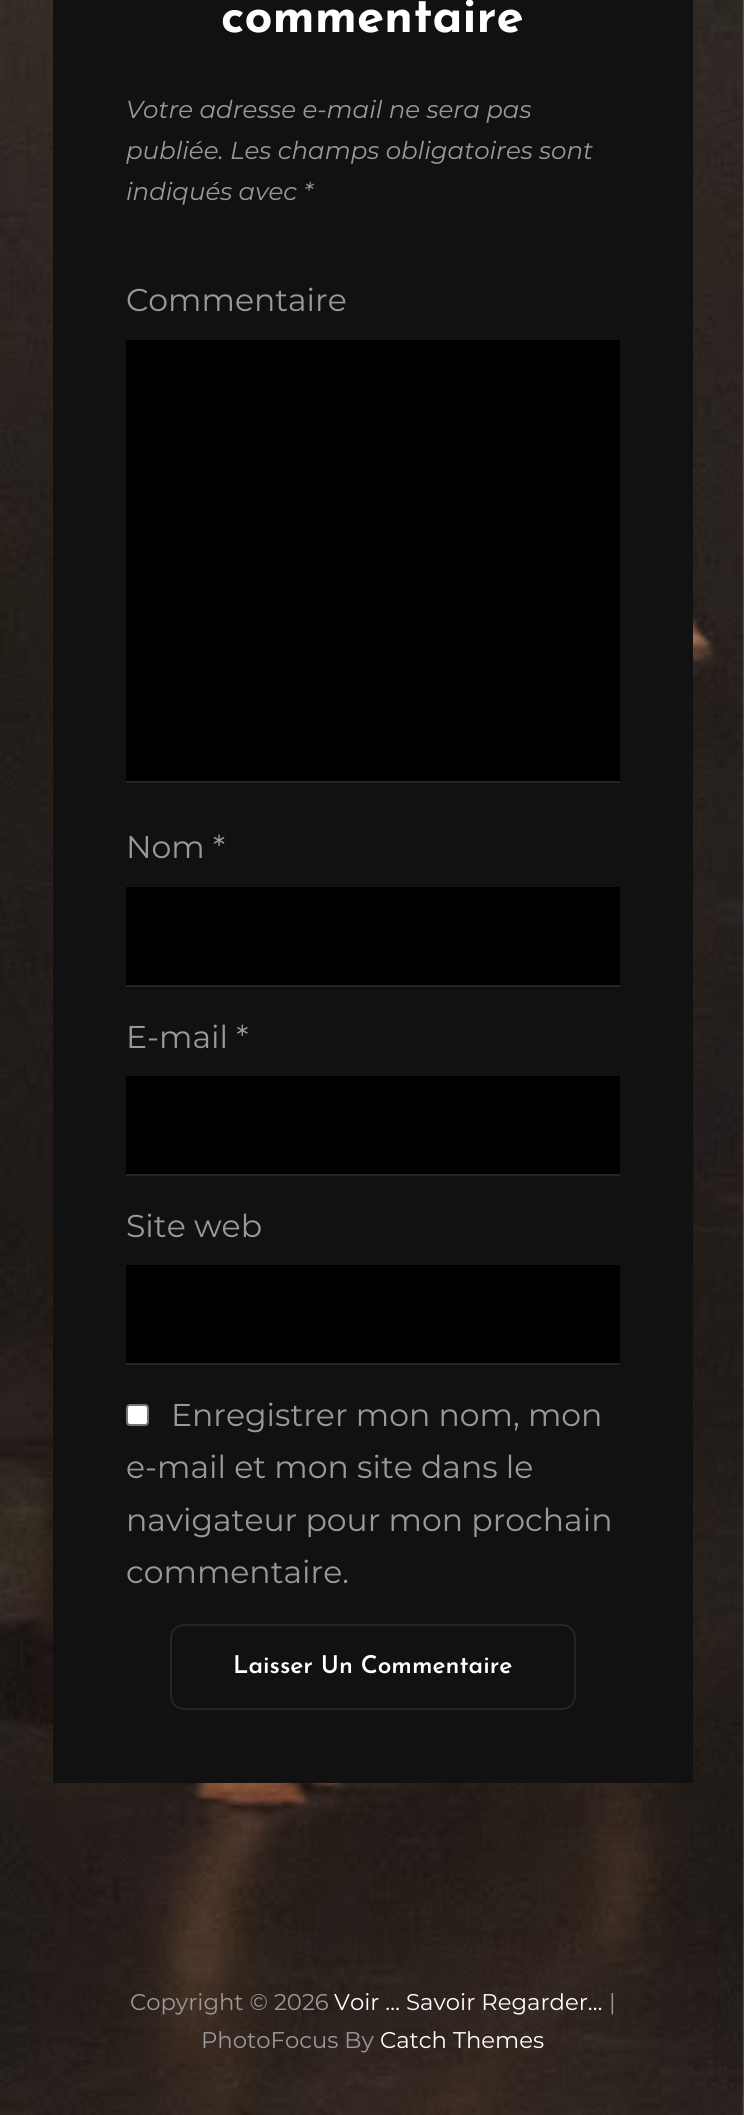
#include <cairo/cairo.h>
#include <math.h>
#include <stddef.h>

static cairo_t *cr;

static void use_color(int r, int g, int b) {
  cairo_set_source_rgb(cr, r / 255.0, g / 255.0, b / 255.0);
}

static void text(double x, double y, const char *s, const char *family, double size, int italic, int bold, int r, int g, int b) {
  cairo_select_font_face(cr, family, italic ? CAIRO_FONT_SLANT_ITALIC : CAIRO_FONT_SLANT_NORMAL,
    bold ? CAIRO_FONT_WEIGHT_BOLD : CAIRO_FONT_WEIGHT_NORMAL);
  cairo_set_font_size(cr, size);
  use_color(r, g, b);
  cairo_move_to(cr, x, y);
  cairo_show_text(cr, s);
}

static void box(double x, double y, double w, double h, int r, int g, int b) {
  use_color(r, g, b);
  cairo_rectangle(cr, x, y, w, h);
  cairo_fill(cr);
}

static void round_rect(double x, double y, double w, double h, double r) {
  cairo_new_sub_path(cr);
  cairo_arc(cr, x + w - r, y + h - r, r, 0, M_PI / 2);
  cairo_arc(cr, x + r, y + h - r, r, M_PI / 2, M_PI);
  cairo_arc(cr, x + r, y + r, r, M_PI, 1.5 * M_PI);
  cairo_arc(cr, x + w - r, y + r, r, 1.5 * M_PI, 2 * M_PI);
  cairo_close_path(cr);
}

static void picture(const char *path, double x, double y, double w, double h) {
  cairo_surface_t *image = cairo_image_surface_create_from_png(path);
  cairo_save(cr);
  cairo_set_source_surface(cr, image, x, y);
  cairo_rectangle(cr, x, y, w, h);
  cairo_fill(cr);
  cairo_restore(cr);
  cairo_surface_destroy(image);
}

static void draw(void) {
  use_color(255, 255, 255);
  cairo_paint(cr);
  picture("img_01.png", 0, 0, 744, 2115);
  box(53, 0, 640, 1783, 17, 17, 17);
  box(126, 340, 494, 441, 0, 0, 0);
  box(126, 781, 494, 2, 37, 37, 37);
  box(126, 887, 494, 98, 0, 0, 0);
  box(126, 985, 494, 2, 37, 37, 37);
  box(126, 1076, 494, 98, 0, 0, 0);
  box(126, 1174, 494, 2, 37, 37, 37);
  box(126, 1265, 494, 98, 0, 0, 0);
  box(126, 1363, 494, 2, 37, 37, 37);
  use_color(255, 255, 255);
  round_rect(127, 1405, 21, 20, 3);
  cairo_fill_preserve(cr);
  use_color(118, 118, 118);
  cairo_stroke(cr);
  round_rect(171, 1625, 404, 84, 13);
  use_color(37, 37, 37);
  cairo_stroke(cr);
  text(221, 32, "commentaire", "Josefin Sans", 49, 0, 1, 255, 255, 255);
  text(126, 118, "Votre adresse e-mail ne sera pas", "Montserrat", 24.5, 1, 0, 153, 153, 153);
  text(126, 159, "publiée. Les champs obligatoires sont", "Montserrat", 24.5, 1, 0, 153, 153, 153);
  text(126, 200, "indiqués avec *", "Montserrat", 24.5, 1, 0, 153, 153, 153);
  text(126, 311, "Commentaire", "Montserrat", 31.5, 0, 0, 153, 153, 153);
  text(126, 858, "Nom *", "Montserrat", 31.5, 0, 0, 153, 153, 153);
  text(126, 1048, "E-mail *", "Montserrat", 31.5, 0, 0, 153, 153, 153);
  text(126, 1237, "Site web", "Montserrat", 31.5, 0, 0, 153, 153, 153);
  text(171, 1426, "Enregistrer mon nom, mon", "Montserrat", 31.5, 0, 0, 153, 153, 153);
  text(126, 1478, "e-mail et mon site dans le", "Montserrat", 31.5, 0, 0, 153, 153, 153);
  text(126, 1531, "navigateur pour mon prochain", "Montserrat", 31.5, 0, 0, 153, 153, 153);
  text(126, 1583, "commentaire.", "Montserrat", 31.5, 0, 0, 153, 153, 153);
  text(233, 1673, "Laisser Un Commentaire", "Josefin Sans SemiBold", 24.5, 0, 0, 255, 255, 255);
  text(130, 2010, "Copyright © 2026", "Montserrat", 22.75, 0, 0, 153, 153, 153);
  text(334, 2010, "Voir … Savoir Regarder…", "Montserrat", 22.75, 0, 0, 255, 255, 255);
  text(609, 2010, "|", "Montserrat", 22.75, 0, 0, 153, 153, 153);
  text(201, 2048, "PhotoFocus By", "Montserrat", 22.75, 0, 0, 153, 153, 153);
  text(380, 2048, "Catch Themes", "Montserrat", 22.75, 0, 0, 255, 255, 255);
}

int main(void) {
  cairo_surface_t *surface = cairo_image_surface_create(CAIRO_FORMAT_RGB24, 744, 2115);
  cr = cairo_create(surface);
  cairo_font_options_t *options = cairo_font_options_create();
  cairo_font_options_set_hint_metrics(options, CAIRO_HINT_METRICS_OFF);
  cairo_font_options_set_hint_style(options, CAIRO_HINT_STYLE_NONE);
  cairo_set_font_options(cr, options);
  cairo_set_miter_limit(cr, 4);
  draw();
  cairo_surface_write_to_png(surface, "out.png");
  cairo_font_options_destroy(options);
  cairo_destroy(cr);
  cairo_surface_destroy(surface);
  return 0;
}
